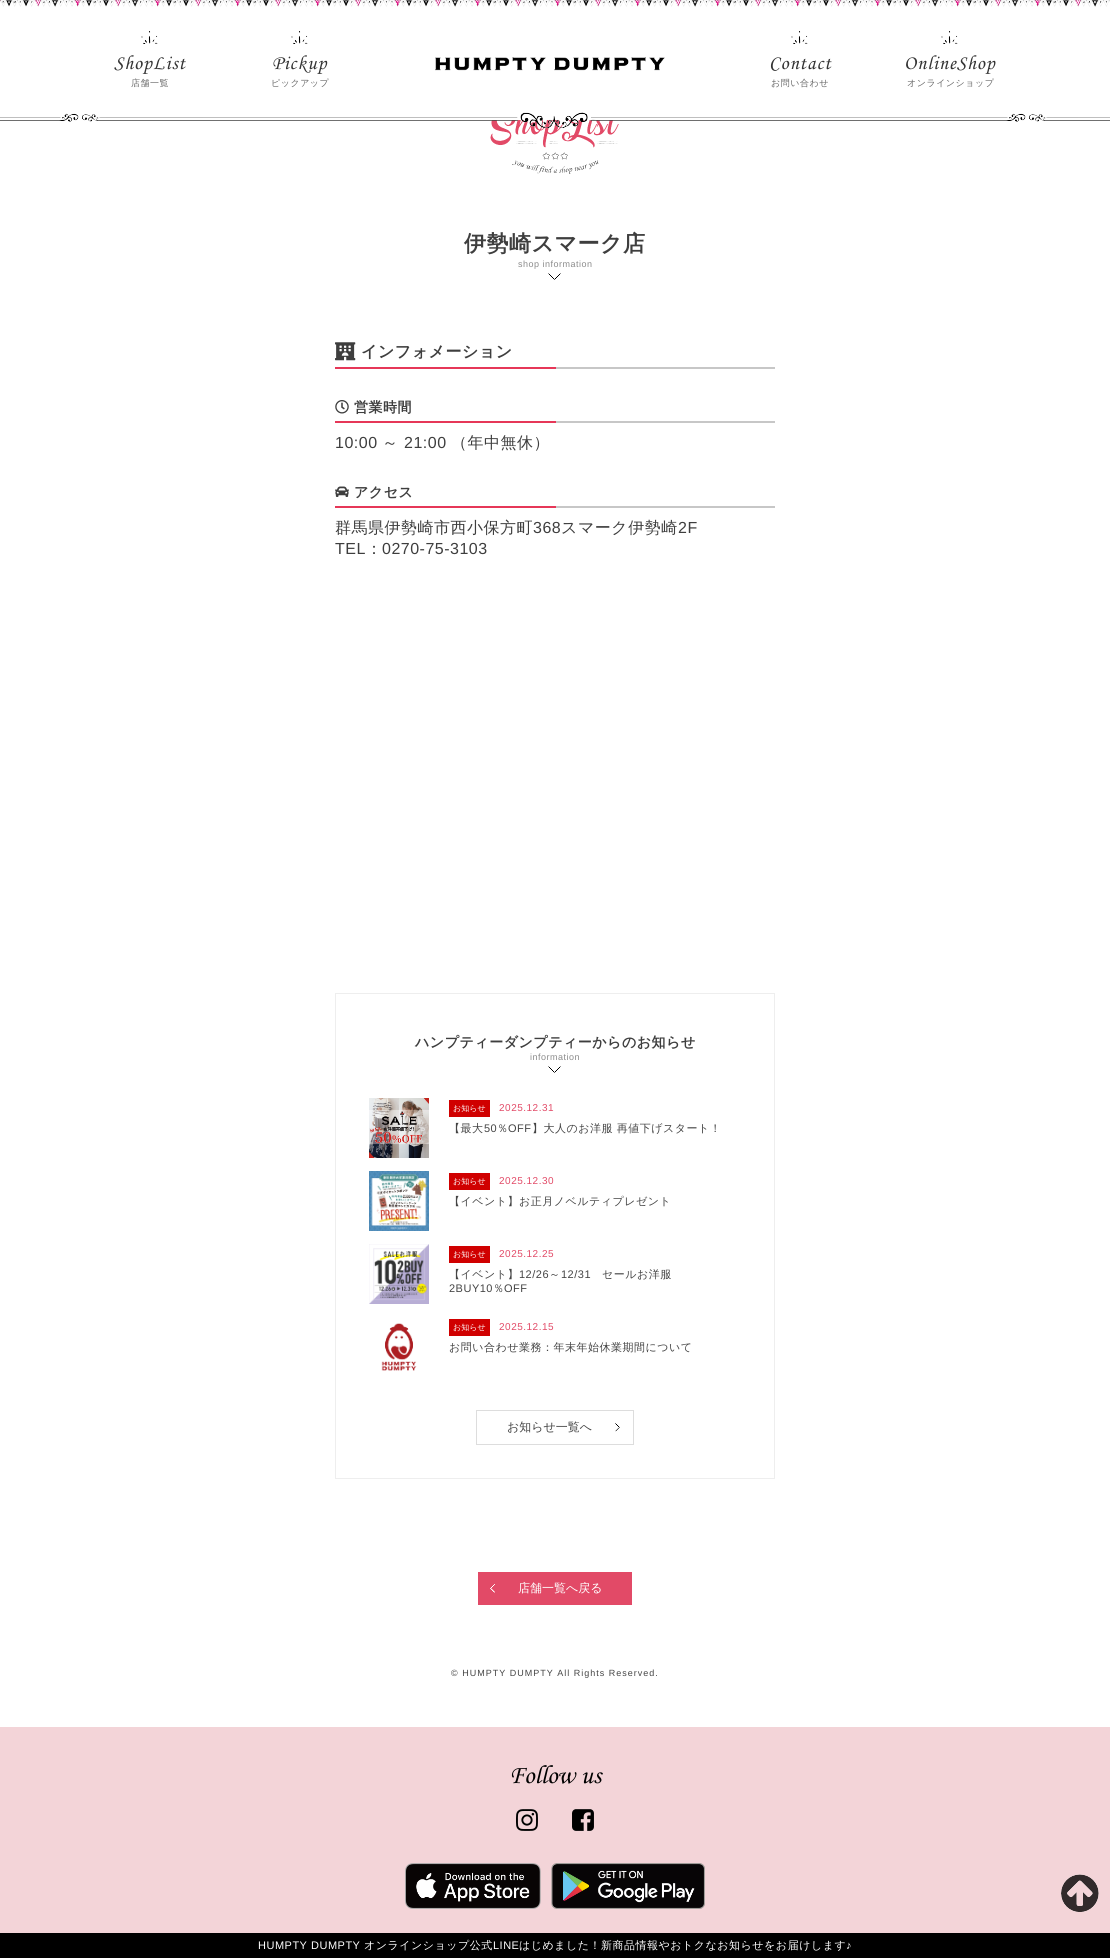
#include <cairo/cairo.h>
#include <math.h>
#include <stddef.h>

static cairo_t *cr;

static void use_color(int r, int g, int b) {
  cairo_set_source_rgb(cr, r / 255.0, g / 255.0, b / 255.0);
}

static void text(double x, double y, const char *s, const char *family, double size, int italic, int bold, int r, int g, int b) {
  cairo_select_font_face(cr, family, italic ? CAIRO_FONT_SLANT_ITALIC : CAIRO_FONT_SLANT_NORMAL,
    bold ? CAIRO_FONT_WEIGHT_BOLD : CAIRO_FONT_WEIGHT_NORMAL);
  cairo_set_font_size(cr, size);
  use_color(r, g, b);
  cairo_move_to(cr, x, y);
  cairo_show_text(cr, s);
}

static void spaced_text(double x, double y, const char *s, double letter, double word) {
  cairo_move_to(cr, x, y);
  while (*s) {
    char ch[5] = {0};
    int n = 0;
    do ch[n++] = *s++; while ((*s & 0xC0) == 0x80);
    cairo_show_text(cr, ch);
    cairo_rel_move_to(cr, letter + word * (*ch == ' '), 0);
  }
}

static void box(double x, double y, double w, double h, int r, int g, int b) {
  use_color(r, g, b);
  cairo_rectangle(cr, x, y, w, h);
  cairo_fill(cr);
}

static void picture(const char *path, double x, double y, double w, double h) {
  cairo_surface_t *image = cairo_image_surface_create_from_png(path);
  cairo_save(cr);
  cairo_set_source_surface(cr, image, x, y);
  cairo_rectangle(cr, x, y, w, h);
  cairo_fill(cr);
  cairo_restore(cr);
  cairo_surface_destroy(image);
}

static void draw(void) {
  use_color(255, 255, 255);
  cairo_paint(cr);
  picture("img_01.png", 0, 0, 1110, 7);
  picture("img_02.png", 141, 31, 17, 13);
  picture("img_02.png", 291, 31, 17, 13);
  picture("img_03.png", 435, 57, 230, 14);
  picture("img_02.png", 791, 31, 17, 13);
  picture("img_02.png", 941, 31, 17, 13);
  picture("img_05.png", 490, 120, 129, 54);
  picture("img_04.png", 0, 112, 1110, 16);
  picture("img_06.png", 548, 273, 13, 7);
  picture("img_07.png", 335, 367, 440, 2);
  picture("img_08.png", 335, 342, 21, 19);
  picture("img_07.png", 335, 421, 440, 2);
  picture("img_09.png", 335, 400, 14, 14);
  picture("img_07.png", 335, 506, 440, 2);
  picture("img_10.png", 335, 486, 14, 11);
  cairo_rectangle(cr, 335.5, 993.5, 439, 485);
  use_color(238, 238, 238);
  cairo_set_line_width(cr, 1);
  cairo_stroke(cr);
  picture("img_06.png", 548, 1066, 13, 7);
  picture("img_11.png", 369, 1098, 60, 60);
  box(449, 1100, 41, 17, 208, 0, 0);
  picture("img_12.png", 369, 1171, 60, 60);
  box(449, 1173, 41, 17, 208, 0, 0);
  picture("img_13.png", 369, 1244, 60, 60);
  box(449, 1246, 41, 17, 208, 0, 0);
  picture("img_14.png", 381, 1323, 36, 48);
  box(449, 1319, 41, 17, 208, 0, 0);
  picture("img_15.png", 615, 1423, 5, 9);
  cairo_rectangle(cr, 476.5, 1410.5, 157, 34);
  use_color(221, 221, 221);
  cairo_stroke(cr);
  box(478, 1572, 154, 33, 226, 74, 103);
  picture("img_16.png", 490, 1584, 5, 9);
  box(0, 1727, 1110, 206, 243, 212, 216);
  picture("img_17.png", 516, 1809, 22, 22);
  picture("img_18.png", 572, 1809, 22, 22);
  picture("img_19.png", 405, 1863, 136, 46);
  picture("img_20.png", 551, 1863, 154, 46);
  box(0, 1933, 1110, 25, 0, 0, 0);
  picture("img_21.png", 1061, 1874, 38, 38);
  cairo_select_font_face(cr, "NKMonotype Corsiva", CAIRO_FONT_SLANT_ITALIC, CAIRO_FONT_WEIGHT_NORMAL);
  cairo_set_font_size(cr, 20);
  use_color(51, 51, 51);
  spaced_text(114, 69, "ShopList", 1, 0);
  cairo_select_font_face(cr, "WenQuanYi Zen Hei Medium", CAIRO_FONT_SLANT_NORMAL, CAIRO_FONT_WEIGHT_NORMAL);
  cairo_set_font_size(cr, 9);
  use_color(102, 102, 102);
  spaced_text(131, 86, "店舗一覧", 0.5, 0);
  cairo_select_font_face(cr, "NKMonotype Corsiva", CAIRO_FONT_SLANT_ITALIC, CAIRO_FONT_WEIGHT_NORMAL);
  cairo_set_font_size(cr, 20);
  use_color(51, 51, 51);
  spaced_text(272, 69, "Pickup", 1, 0);
  cairo_select_font_face(cr, "WenQuanYi Zen Hei Medium", CAIRO_FONT_SLANT_NORMAL, CAIRO_FONT_WEIGHT_NORMAL);
  cairo_set_font_size(cr, 9);
  use_color(102, 102, 102);
  spaced_text(271, 86, "ピックアップ", 0.5, 0);
  cairo_select_font_face(cr, "NKMonotype Corsiva", CAIRO_FONT_SLANT_ITALIC, CAIRO_FONT_WEIGHT_NORMAL);
  cairo_set_font_size(cr, 20);
  use_color(51, 51, 51);
  spaced_text(769, 69, "Contact", 1, 0);
  cairo_select_font_face(cr, "WenQuanYi Zen Hei Medium", CAIRO_FONT_SLANT_NORMAL, CAIRO_FONT_WEIGHT_NORMAL);
  cairo_set_font_size(cr, 9);
  use_color(102, 102, 102);
  spaced_text(771, 86, "お問い合わせ", 0.5, 0);
  cairo_select_font_face(cr, "NKMonotype Corsiva", CAIRO_FONT_SLANT_ITALIC, CAIRO_FONT_WEIGHT_NORMAL);
  cairo_set_font_size(cr, 20);
  use_color(51, 51, 51);
  spaced_text(904, 69, "OnlineShop", 1, 0);
  cairo_select_font_face(cr, "WenQuanYi Zen Hei Medium", CAIRO_FONT_SLANT_NORMAL, CAIRO_FONT_WEIGHT_NORMAL);
  cairo_set_font_size(cr, 9);
  use_color(102, 102, 102);
  spaced_text(907, 86, "オンラインショップ", 0.5, 0);
  cairo_select_font_face(cr, "WenQuanYi Zen Hei", CAIRO_FONT_SLANT_NORMAL, CAIRO_FONT_WEIGHT_BOLD);
  cairo_set_font_size(cr, 22);
  use_color(62, 62, 62);
  spaced_text(464, 251, "伊勢崎スマーク店", 0.5, 0);
  cairo_select_font_face(cr, "Liberation Sans", CAIRO_FONT_SLANT_NORMAL, CAIRO_FONT_WEIGHT_NORMAL);
  cairo_set_font_size(cr, 9);
  use_color(139, 139, 139);
  spaced_text(518, 267, "shop information", 0.5, 0);
  cairo_select_font_face(cr, "WenQuanYi Zen Hei", CAIRO_FONT_SLANT_NORMAL, CAIRO_FONT_WEIGHT_BOLD);
  cairo_set_font_size(cr, 16);
  use_color(62, 62, 62);
  spaced_text(361, 357, "インフォメーション", 0.5, 0);
  cairo_set_font_size(cr, 14);
  spaced_text(354, 412, "営業時間", 0.5, 0);
  cairo_select_font_face(cr, "Liberation Sans", CAIRO_FONT_SLANT_NORMAL, CAIRO_FONT_WEIGHT_NORMAL);
  cairo_set_font_size(cr, 16);
  spaced_text(335, 448, "10:00", 0.5, 0);
  cairo_select_font_face(cr, "WenQuanYi Zen Hei Medium", CAIRO_FONT_SLANT_NORMAL, CAIRO_FONT_WEIGHT_NORMAL);
  spaced_text(382, 448, "～", 0.5, 0);
  cairo_select_font_face(cr, "Liberation Sans", CAIRO_FONT_SLANT_NORMAL, CAIRO_FONT_WEIGHT_NORMAL);
  spaced_text(404, 448, "21:00", 0.5, 0);
  cairo_select_font_face(cr, "WenQuanYi Zen Hei Medium", CAIRO_FONT_SLANT_NORMAL, CAIRO_FONT_WEIGHT_NORMAL);
  spaced_text(451, 448, "（年中無休）", 0.5, 0);
  cairo_select_font_face(cr, "WenQuanYi Zen Hei", CAIRO_FONT_SLANT_NORMAL, CAIRO_FONT_WEIGHT_BOLD);
  cairo_set_font_size(cr, 14);
  spaced_text(354, 497, "アクセス", 0.5, 0);
  cairo_select_font_face(cr, "WenQuanYi Zen Hei Medium", CAIRO_FONT_SLANT_NORMAL, CAIRO_FONT_WEIGHT_NORMAL);
  cairo_set_font_size(cr, 16);
  spaced_text(335, 533, "群馬県伊勢崎市西小保方町", 0.5, 0);
  cairo_select_font_face(cr, "Liberation Sans", CAIRO_FONT_SLANT_NORMAL, CAIRO_FONT_WEIGHT_NORMAL);
  spaced_text(533, 533, "368", 0.5, 0);
  cairo_select_font_face(cr, "WenQuanYi Zen Hei Medium", CAIRO_FONT_SLANT_NORMAL, CAIRO_FONT_WEIGHT_NORMAL);
  spaced_text(561, 533, "スマーク伊勢崎", 0.5, 0);
  cairo_select_font_face(cr, "Liberation Sans", CAIRO_FONT_SLANT_NORMAL, CAIRO_FONT_WEIGHT_NORMAL);
  spaced_text(678, 533, "2F", 0.5, 0);
  spaced_text(335, 554, "TEL", 0.5, 0);
  cairo_select_font_face(cr, "WenQuanYi Zen Hei Medium", CAIRO_FONT_SLANT_NORMAL, CAIRO_FONT_WEIGHT_NORMAL);
  spaced_text(366, 554, "：", 0.5, 0);
  cairo_select_font_face(cr, "Liberation Sans", CAIRO_FONT_SLANT_NORMAL, CAIRO_FONT_WEIGHT_NORMAL);
  spaced_text(382, 554, "0270-75-3103", 0.5, 0);
  cairo_select_font_face(cr, "WenQuanYi Zen Hei", CAIRO_FONT_SLANT_NORMAL, CAIRO_FONT_WEIGHT_BOLD);
  cairo_set_font_size(cr, 14);
  spaced_text(415, 1047, "ハンプティーダンプティーからのお知らせ", 0.5, 0);
  cairo_select_font_face(cr, "Liberation Sans", CAIRO_FONT_SLANT_NORMAL, CAIRO_FONT_WEIGHT_NORMAL);
  cairo_set_font_size(cr, 9);
  use_color(139, 139, 139);
  spaced_text(530, 1060, "information", 0.5, 0);
  text(453, 1111, "お知らせ", "WenQuanYi Zen Hei Medium", 8, 0, 0, 255, 255, 255);
  cairo_select_font_face(cr, "Liberation Sans", CAIRO_FONT_SLANT_NORMAL, CAIRO_FONT_WEIGHT_NORMAL);
  cairo_set_font_size(cr, 10);
  use_color(226, 74, 103);
  spaced_text(499, 1111, "2025.12.31", 0.5, 0);
  cairo_select_font_face(cr, "WenQuanYi Zen Hei Medium", CAIRO_FONT_SLANT_NORMAL, CAIRO_FONT_WEIGHT_NORMAL);
  cairo_set_font_size(cr, 11);
  use_color(68, 68, 68);
  spaced_text(449, 1132, "【最大", 0.5, 0);
  cairo_select_font_face(cr, "Liberation Sans", CAIRO_FONT_SLANT_NORMAL, CAIRO_FONT_WEIGHT_NORMAL);
  spaced_text(484, 1132, "50", 0.5, 0);
  cairo_select_font_face(cr, "WenQuanYi Zen Hei Medium", CAIRO_FONT_SLANT_NORMAL, CAIRO_FONT_WEIGHT_NORMAL);
  spaced_text(497, 1132, "％", 0.5, 0);
  cairo_select_font_face(cr, "Liberation Sans", CAIRO_FONT_SLANT_NORMAL, CAIRO_FONT_WEIGHT_NORMAL);
  spaced_text(508, 1132, "OFF", 0.5, 0);
  cairo_select_font_face(cr, "WenQuanYi Zen Hei Medium", CAIRO_FONT_SLANT_NORMAL, CAIRO_FONT_WEIGHT_NORMAL);
  spaced_text(532, 1132, "】大人のお洋服 再値下げスタート！", 0.5, 0);
  text(453, 1184, "お知らせ", "WenQuanYi Zen Hei Medium", 8, 0, 0, 255, 255, 255);
  cairo_select_font_face(cr, "Liberation Sans", CAIRO_FONT_SLANT_NORMAL, CAIRO_FONT_WEIGHT_NORMAL);
  cairo_set_font_size(cr, 10);
  use_color(226, 74, 103);
  spaced_text(499, 1184, "2025.12.30", 0.5, 0);
  cairo_select_font_face(cr, "WenQuanYi Zen Hei Medium", CAIRO_FONT_SLANT_NORMAL, CAIRO_FONT_WEIGHT_NORMAL);
  cairo_set_font_size(cr, 11);
  use_color(68, 68, 68);
  spaced_text(449, 1205, "【イベント】お正月ノベルティプレゼント", 0.5, 0);
  text(453, 1257, "お知らせ", "WenQuanYi Zen Hei Medium", 8, 0, 0, 255, 255, 255);
  cairo_select_font_face(cr, "Liberation Sans", CAIRO_FONT_SLANT_NORMAL, CAIRO_FONT_WEIGHT_NORMAL);
  cairo_set_font_size(cr, 10);
  use_color(226, 74, 103);
  spaced_text(499, 1257, "2025.12.25", 0.5, 0);
  cairo_select_font_face(cr, "WenQuanYi Zen Hei Medium", CAIRO_FONT_SLANT_NORMAL, CAIRO_FONT_WEIGHT_NORMAL);
  cairo_set_font_size(cr, 11);
  use_color(68, 68, 68);
  spaced_text(449, 1278, "【イベント】", 0.5, 0);
  cairo_select_font_face(cr, "Liberation Sans", CAIRO_FONT_SLANT_NORMAL, CAIRO_FONT_WEIGHT_NORMAL);
  spaced_text(519, 1278, "12/26", 0.5, 0);
  cairo_select_font_face(cr, "WenQuanYi Zen Hei Medium", CAIRO_FONT_SLANT_NORMAL, CAIRO_FONT_WEIGHT_NORMAL);
  spaced_text(549, 1278, "～", 0.5, 0);
  cairo_select_font_face(cr, "Liberation Sans", CAIRO_FONT_SLANT_NORMAL, CAIRO_FONT_WEIGHT_NORMAL);
  spaced_text(561, 1278, "12/31", 0.5, 0);
  cairo_select_font_face(cr, "WenQuanYi Zen Hei Medium", CAIRO_FONT_SLANT_NORMAL, CAIRO_FONT_WEIGHT_NORMAL);
  spaced_text(602, 1278, "セールお洋服", 0.5, 0);
  cairo_select_font_face(cr, "Liberation Sans", CAIRO_FONT_SLANT_NORMAL, CAIRO_FONT_WEIGHT_NORMAL);
  spaced_text(449, 1292, "2BUY10", 0.5, 0);
  cairo_select_font_face(cr, "WenQuanYi Zen Hei Medium", CAIRO_FONT_SLANT_NORMAL, CAIRO_FONT_WEIGHT_NORMAL);
  spaced_text(493, 1292, "％", 0.5, 0);
  cairo_select_font_face(cr, "Liberation Sans", CAIRO_FONT_SLANT_NORMAL, CAIRO_FONT_WEIGHT_NORMAL);
  spaced_text(504, 1292, "OFF", 0.5, 0);
  text(453, 1330, "お知らせ", "WenQuanYi Zen Hei Medium", 8, 0, 0, 255, 255, 255);
  cairo_select_font_face(cr, "Liberation Sans", CAIRO_FONT_SLANT_NORMAL, CAIRO_FONT_WEIGHT_NORMAL);
  cairo_set_font_size(cr, 10);
  use_color(226, 74, 103);
  spaced_text(499, 1330, "2025.12.15", 0.5, 0);
  cairo_select_font_face(cr, "WenQuanYi Zen Hei Medium", CAIRO_FONT_SLANT_NORMAL, CAIRO_FONT_WEIGHT_NORMAL);
  cairo_set_font_size(cr, 11);
  use_color(68, 68, 68);
  spaced_text(449, 1351, "お問い合わせ業務：年末年始休業期間について", 0.5, 0);
  text(507, 1431, "お知らせ一覧へ", "WenQuanYi Zen Hei Medium", 12, 0, 0, 68, 68, 68);
  text(518, 1592, "店舗一覧へ戻る", "WenQuanYi Zen Hei Medium", 12, 0, 0, 255, 255, 255);
  cairo_select_font_face(cr, "Liberation Sans", CAIRO_FONT_SLANT_NORMAL, CAIRO_FONT_WEIGHT_NORMAL);
  cairo_set_font_size(cr, 9);
  use_color(68, 68, 68);
  spaced_text(451, 1676, "© HUMPTY DUMPTY All Rights Reserved.", 1, 0);
  text(509, 1783, "Follow us", "NKMonotype Corsiva", 26, 1, 0, 0, 0, 0);
  cairo_select_font_face(cr, "Liberation Sans", CAIRO_FONT_SLANT_NORMAL, CAIRO_FONT_WEIGHT_NORMAL);
  cairo_set_font_size(cr, 11);
  use_color(255, 255, 255);
  spaced_text(258, 1949, "HUMPTY DUMPTY", 0.5, 0);
  cairo_select_font_face(cr, "WenQuanYi Zen Hei Medium", CAIRO_FONT_SLANT_NORMAL, CAIRO_FONT_WEIGHT_NORMAL);
  spaced_text(364, 1949, "オンラインショップ公式", 0.5, 0);
  cairo_select_font_face(cr, "Liberation Sans", CAIRO_FONT_SLANT_NORMAL, CAIRO_FONT_WEIGHT_NORMAL);
  spaced_text(493, 1949, "LINE", 0.5, 0);
  cairo_select_font_face(cr, "WenQuanYi Zen Hei Medium", CAIRO_FONT_SLANT_NORMAL, CAIRO_FONT_WEIGHT_NORMAL);
  spaced_text(519, 1949, "はじめました！新商品情報やおトクなお知らせをお届けします", 0.5, 0);
  cairo_select_font_face(cr, "Liberation Sans", CAIRO_FONT_SLANT_NORMAL, CAIRO_FONT_WEIGHT_NORMAL);
  spaced_text(846, 1949, "♪", 0.5, 0);
}

int main(void) {
  cairo_surface_t *surface = cairo_image_surface_create(CAIRO_FORMAT_RGB24, 1110, 1958);
  cr = cairo_create(surface);
  cairo_font_options_t *options = cairo_font_options_create();
  cairo_font_options_set_hint_metrics(options, CAIRO_HINT_METRICS_OFF);
  cairo_font_options_set_hint_style(options, CAIRO_HINT_STYLE_NONE);
  cairo_set_font_options(cr, options);
  cairo_set_miter_limit(cr, 4);
  draw();
  cairo_surface_write_to_png(surface, "out.png");
  cairo_font_options_destroy(options);
  cairo_destroy(cr);
  cairo_surface_destroy(surface);
  return 0;
}
